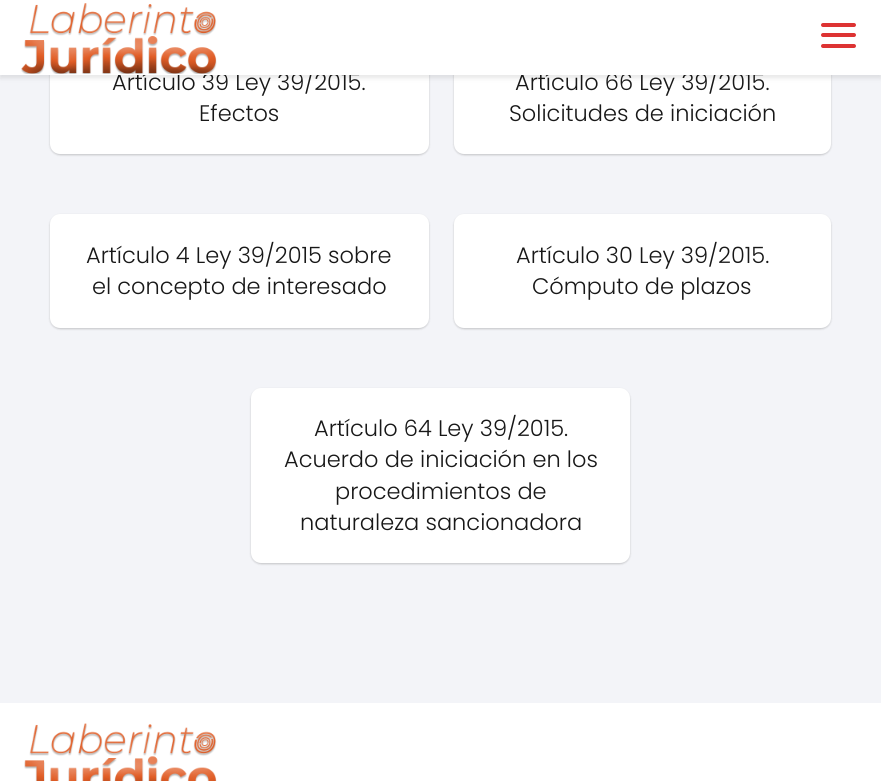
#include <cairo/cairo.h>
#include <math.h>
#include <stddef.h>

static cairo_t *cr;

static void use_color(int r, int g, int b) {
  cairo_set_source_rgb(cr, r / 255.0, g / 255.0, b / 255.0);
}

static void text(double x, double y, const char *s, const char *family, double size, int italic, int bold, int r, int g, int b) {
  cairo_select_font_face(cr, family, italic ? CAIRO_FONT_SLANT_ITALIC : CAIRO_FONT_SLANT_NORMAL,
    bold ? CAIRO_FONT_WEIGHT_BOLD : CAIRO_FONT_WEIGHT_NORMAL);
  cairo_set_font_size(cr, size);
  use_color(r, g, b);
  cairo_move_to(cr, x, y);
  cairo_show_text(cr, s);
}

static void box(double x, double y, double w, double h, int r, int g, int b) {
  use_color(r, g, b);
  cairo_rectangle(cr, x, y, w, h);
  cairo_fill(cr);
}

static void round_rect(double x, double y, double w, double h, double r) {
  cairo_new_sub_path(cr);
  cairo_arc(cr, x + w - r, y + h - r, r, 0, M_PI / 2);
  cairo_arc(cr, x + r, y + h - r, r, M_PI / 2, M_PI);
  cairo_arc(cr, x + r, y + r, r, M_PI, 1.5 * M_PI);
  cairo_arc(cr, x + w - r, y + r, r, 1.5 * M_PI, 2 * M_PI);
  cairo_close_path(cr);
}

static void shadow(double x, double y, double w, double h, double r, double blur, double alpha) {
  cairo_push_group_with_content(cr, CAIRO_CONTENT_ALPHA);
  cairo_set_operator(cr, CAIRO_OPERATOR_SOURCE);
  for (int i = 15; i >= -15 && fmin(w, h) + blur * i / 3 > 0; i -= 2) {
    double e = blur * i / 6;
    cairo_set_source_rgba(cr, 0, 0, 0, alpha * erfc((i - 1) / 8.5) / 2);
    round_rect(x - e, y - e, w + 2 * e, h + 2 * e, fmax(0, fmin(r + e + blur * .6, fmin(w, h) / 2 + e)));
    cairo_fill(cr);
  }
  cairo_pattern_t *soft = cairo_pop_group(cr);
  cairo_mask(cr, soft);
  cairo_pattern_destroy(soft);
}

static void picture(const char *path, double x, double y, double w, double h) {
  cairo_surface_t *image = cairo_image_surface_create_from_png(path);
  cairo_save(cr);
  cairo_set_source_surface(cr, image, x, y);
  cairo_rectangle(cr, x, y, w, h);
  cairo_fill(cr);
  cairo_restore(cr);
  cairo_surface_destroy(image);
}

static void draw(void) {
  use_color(243, 244, 248);
  cairo_paint(cr);
  use_color(0, 0, 0);
  shadow(50, 43, 379, 112, 10, 1, 0.2);
  use_color(255, 255, 255);
  round_rect(50, 41, 379, 113, 10);
  cairo_fill(cr);
  use_color(0, 0, 0);
  shadow(454, 43, 377, 112, 10, 1, 0.2);
  use_color(255, 255, 255);
  round_rect(454, 41, 377, 113, 10);
  cairo_fill(cr);
  use_color(0, 0, 0);
  shadow(0, 3, 881, 75, 0, 2.5, 0.1);
  shadow(50, 215, 379, 114, 10, 1, 0.2);
  use_color(255, 255, 255);
  round_rect(50, 214, 379, 114, 10);
  cairo_fill(cr);
  use_color(0, 0, 0);
  shadow(454, 215, 377, 114, 10, 1, 0.2);
  use_color(255, 255, 255);
  round_rect(454, 214, 377, 114, 10);
  cairo_fill(cr);
  use_color(0, 0, 0);
  shadow(251, 389, 379, 175, 10, 1, 0.2);
  use_color(255, 255, 255);
  round_rect(251, 388, 379, 175, 10);
  cairo_fill(cr);
  box(0, 703, 881, 78, 255, 255, 255);
  picture("img_02.png", 24, 723, 193, 58);
  text(112, 90, "Artículo 39 Ley 39/2015.", "Poppins Light", 22.5, 0, 0, 24, 24, 24);
  text(199, 121, "Efectos", "Poppins Light", 22.5, 0, 0, 24, 24, 24);
  text(515, 90, "Artículo 66 Ley 39/2015.", "Poppins Light", 22.5, 0, 0, 24, 24, 24);
  box(0, 0, 881, 75, 255, 255, 255);
  use_color(221, 51, 51);
  round_rect(821, 44, 35, 4, 2);
  cairo_fill(cr);
  round_rect(821, 33, 35, 4, 2);
  cairo_fill(cr);
  round_rect(821, 23, 35, 4, 2);
  cairo_fill(cr);
  picture("img_01.png", 21, 3, 196, 71);
  text(509, 121, "Solicitudes de iniciación", "Poppins Light", 22.5, 0, 0, 24, 24, 24);
  text(86, 263, "Artículo 4 Ley 39/2015 sobre", "Poppins Light", 22.5, 0, 0, 24, 24, 24);
  text(92, 294, "el concepto de interesado", "Poppins Light", 22.5, 0, 0, 24, 24, 24);
  text(516, 263, "Artículo 30 Ley 39/2015.", "Poppins Light", 22.5, 0, 0, 24, 24, 24);
  text(532, 294, "Cómputo de plazos", "Poppins Light", 22.5, 0, 0, 24, 24, 24);
  text(314, 436, "Artículo 64 Ley 39/2015.", "Poppins Light", 22.5, 0, 0, 24, 24, 24);
  text(284, 467, "Acuerdo de iniciación en los", "Poppins Light", 22.5, 0, 0, 24, 24, 24);
  text(335, 499, "procedimientos de", "Poppins Light", 22.5, 0, 0, 24, 24, 24);
  text(300, 530, "naturaleza sancionadora", "Poppins Light", 22.5, 0, 0, 24, 24, 24);
}

int main(void) {
  cairo_surface_t *surface = cairo_image_surface_create(CAIRO_FORMAT_RGB24, 881, 781);
  cr = cairo_create(surface);
  cairo_font_options_t *options = cairo_font_options_create();
  cairo_font_options_set_hint_metrics(options, CAIRO_HINT_METRICS_OFF);
  cairo_font_options_set_hint_style(options, CAIRO_HINT_STYLE_NONE);
  cairo_set_font_options(cr, options);
  cairo_set_miter_limit(cr, 4);
  draw();
  cairo_surface_write_to_png(surface, "out.png");
  cairo_font_options_destroy(options);
  cairo_destroy(cr);
  cairo_surface_destroy(surface);
  return 0;
}
